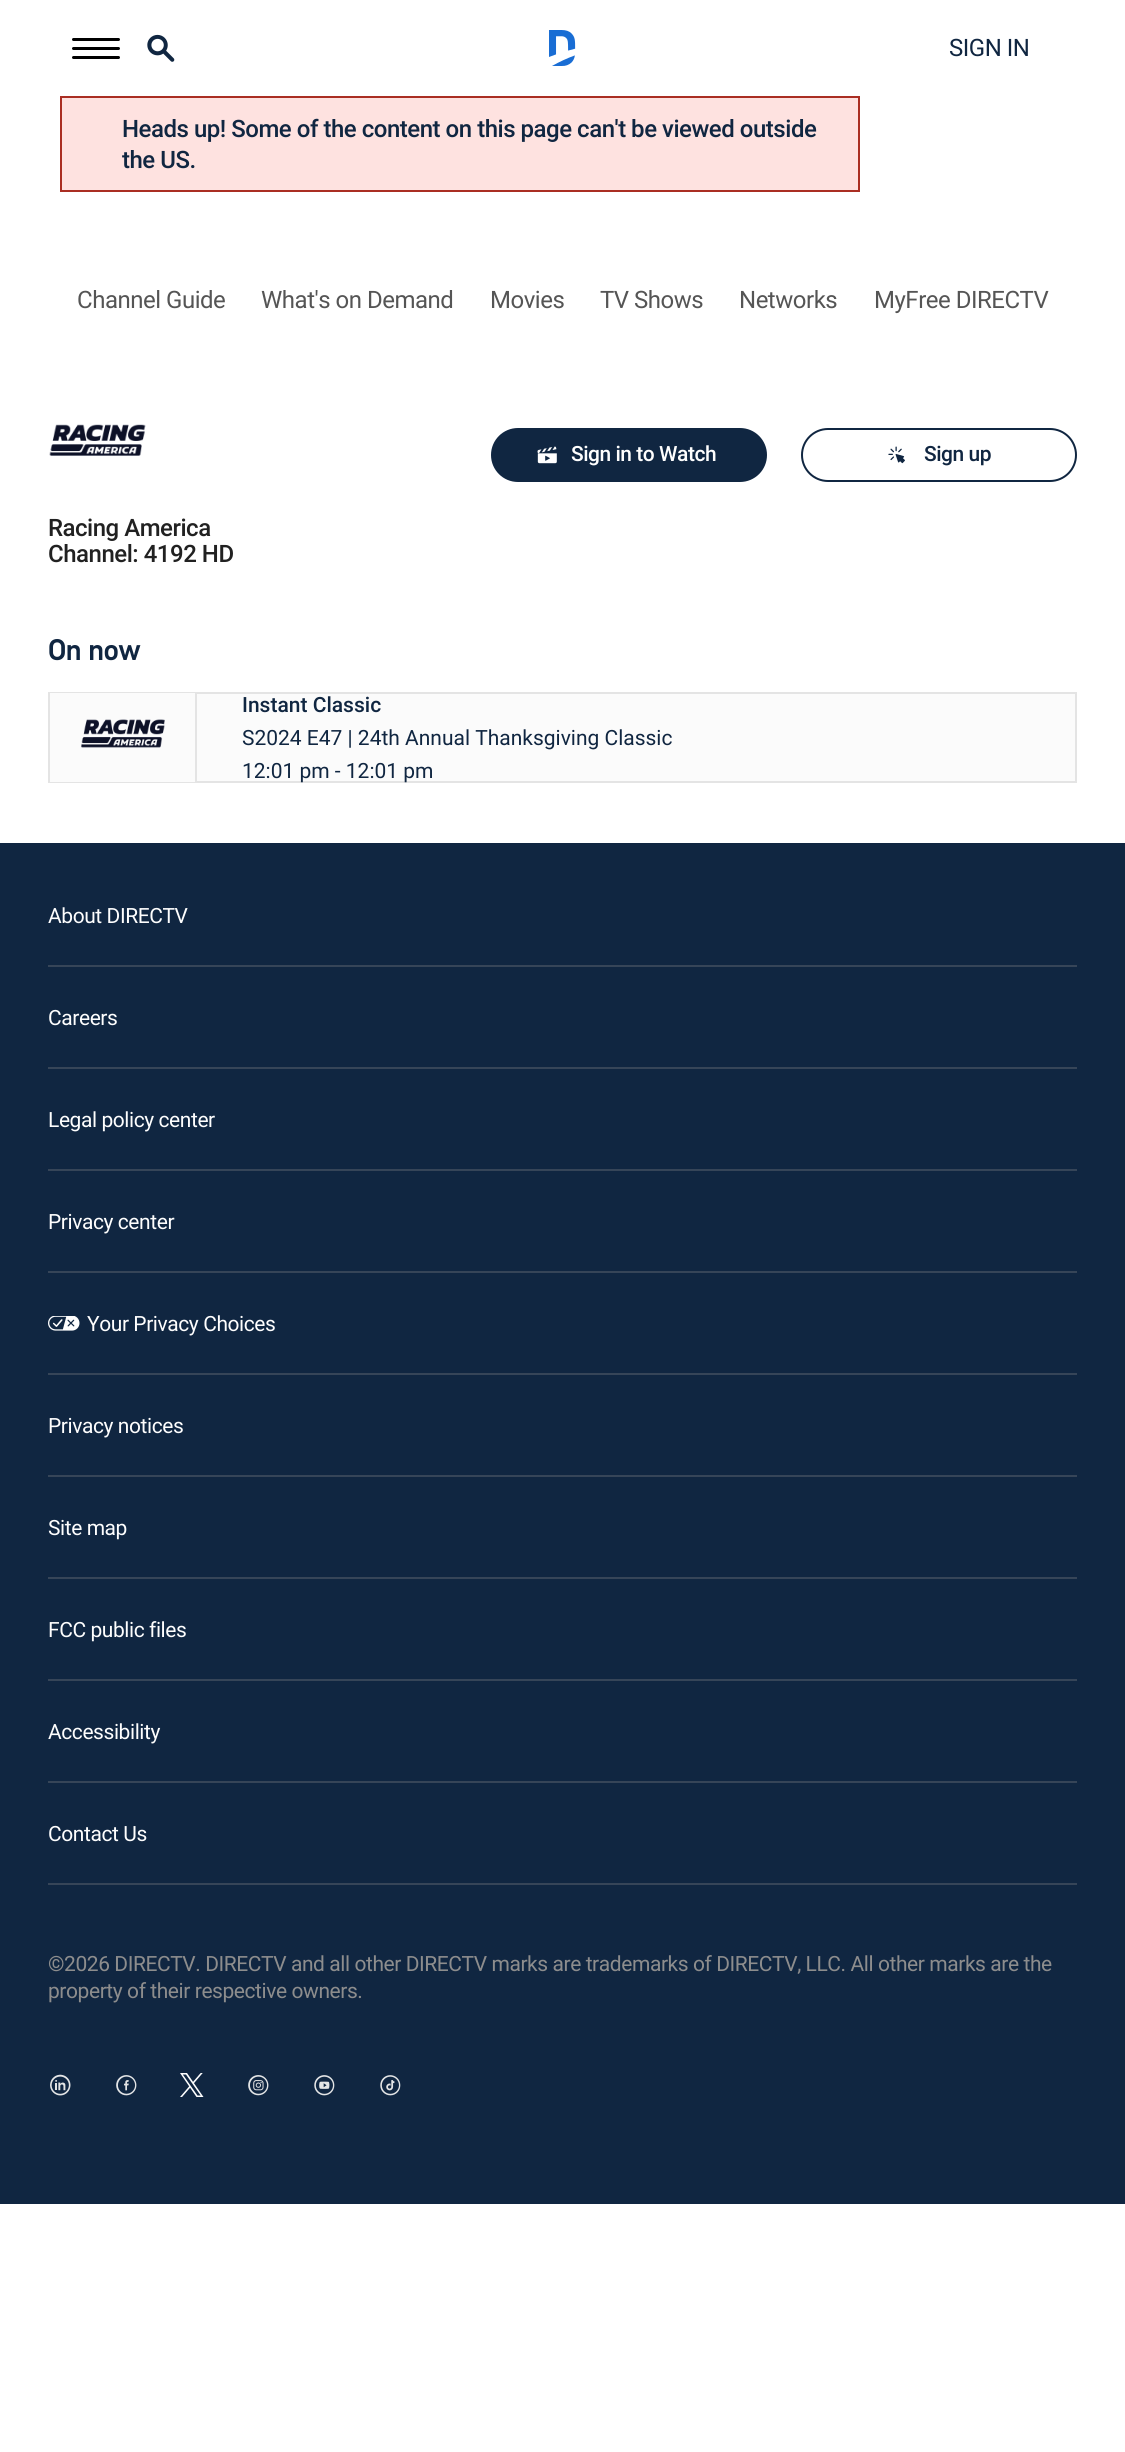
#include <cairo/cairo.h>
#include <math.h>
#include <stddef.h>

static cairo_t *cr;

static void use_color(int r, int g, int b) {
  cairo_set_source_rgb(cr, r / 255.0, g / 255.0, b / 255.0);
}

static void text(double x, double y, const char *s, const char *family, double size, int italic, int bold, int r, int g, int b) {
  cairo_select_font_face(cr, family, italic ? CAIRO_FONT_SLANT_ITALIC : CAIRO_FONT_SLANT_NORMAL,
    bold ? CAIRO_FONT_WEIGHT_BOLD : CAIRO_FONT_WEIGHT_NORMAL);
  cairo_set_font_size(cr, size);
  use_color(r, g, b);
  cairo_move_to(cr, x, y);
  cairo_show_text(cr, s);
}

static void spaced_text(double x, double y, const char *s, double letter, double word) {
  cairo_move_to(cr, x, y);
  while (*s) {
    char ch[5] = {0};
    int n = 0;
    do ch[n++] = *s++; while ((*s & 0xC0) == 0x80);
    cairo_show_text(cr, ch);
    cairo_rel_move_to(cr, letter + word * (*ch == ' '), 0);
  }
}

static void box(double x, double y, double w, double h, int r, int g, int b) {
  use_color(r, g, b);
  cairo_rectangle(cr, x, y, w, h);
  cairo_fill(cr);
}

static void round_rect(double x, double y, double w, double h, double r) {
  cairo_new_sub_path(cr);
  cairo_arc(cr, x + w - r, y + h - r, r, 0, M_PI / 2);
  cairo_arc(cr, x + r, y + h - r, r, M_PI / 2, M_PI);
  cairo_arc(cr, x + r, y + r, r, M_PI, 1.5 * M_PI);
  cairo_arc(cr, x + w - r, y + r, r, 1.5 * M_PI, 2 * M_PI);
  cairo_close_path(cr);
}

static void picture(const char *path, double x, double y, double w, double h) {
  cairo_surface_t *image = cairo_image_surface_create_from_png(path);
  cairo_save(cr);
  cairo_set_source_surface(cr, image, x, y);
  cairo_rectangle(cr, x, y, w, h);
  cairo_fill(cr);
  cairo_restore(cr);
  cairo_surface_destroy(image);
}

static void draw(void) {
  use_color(255, 255, 255);
  cairo_paint(cr);
  use_color(0, 0, 0);
  round_rect(72, 38, 48, 3, 1.5);
  cairo_fill(cr);
  round_rect(72, 47, 48, 3, 1.5);
  cairo_fill(cr);
  round_rect(72, 56, 48, 3, 1.5);
  cairo_fill(cr);
  picture("img_01.png", 147, 34, 28, 28);
  picture("img_02.png", 549, 30, 27, 36);
  use_color(254, 226, 224);
  cairo_rectangle(cr, 61, 97, 798, 94);
  cairo_fill_preserve(cr);
  use_color(170, 46, 35);
  cairo_stroke(cr);
  use_color(16, 38, 65);
  round_rect(491, 428, 276, 54, 27);
  cairo_fill(cr);
  picture("img_03.png", 537, 446, 20, 18);
  round_rect(802, 429, 274, 52, 26);
  cairo_stroke(cr);
  picture("img_04.png", 888, 446, 17, 18);
  picture("img_05.png", 49, 424, 97, 32);
  box(197, 694, 878, 87, 251, 251, 251);
  cairo_rectangle(cr, 49, 693, 1027, 89);
  use_color(228, 228, 228);
  cairo_stroke(cr);
  box(50, 693, 145, 89, 251, 251, 251);
  box(195, 693, 2, 89, 228, 228, 228);
  picture("img_06.png", 81, 719, 84, 29);
  box(0, 843, 1125, 1361, 16, 38, 65);
  box(48, 965, 1029, 2, 54, 69, 88);
  box(48, 1067, 1029, 2, 54, 69, 88);
  box(48, 1169, 1029, 2, 54, 69, 88);
  box(48, 1271, 1029, 2, 54, 69, 88);
  picture("img_07.png", 48, 1316, 32, 15);
  box(48, 1373, 1029, 2, 54, 69, 88);
  box(48, 1475, 1029, 2, 54, 69, 88);
  box(48, 1577, 1029, 2, 54, 69, 88);
  box(48, 1679, 1029, 2, 54, 69, 88);
  box(48, 1781, 1029, 2, 54, 69, 88);
  box(48, 1883, 1029, 2, 54, 69, 88);
  picture("img_08.png", 50, 2074, 21, 22);
  picture("img_09.png", 116, 2075, 21, 21);
  picture("img_10.png", 180, 2073, 24, 24);
  picture("img_11.png", 248, 2075, 21, 21);
  picture("img_12.png", 314, 2075, 21, 21);
  picture("img_13.png", 380, 2075, 21, 21);
  cairo_select_font_face(cr, "Roboto", CAIRO_FONT_SLANT_NORMAL, CAIRO_FONT_WEIGHT_NORMAL);
  cairo_set_font_size(cr, 24);
  use_color(16, 38, 65);
  spaced_text(949, 56, "SIGN IN", -0.48, 0);
  cairo_select_font_face(cr, "Roboto Medium", CAIRO_FONT_SLANT_NORMAL, CAIRO_FONT_WEIGHT_NORMAL);
  spaced_text(122, 137, "Heads up! Some of the content on this page can't be viewed outside", -0.48, 0);
  spaced_text(122, 168, "the US.", -0.48, 0);
  cairo_select_font_face(cr, "Roboto", CAIRO_FONT_SLANT_NORMAL, CAIRO_FONT_WEIGHT_NORMAL);
  use_color(85, 85, 85);
  spaced_text(77, 308, "Channel Guide", -0.48, 0);
  spaced_text(261, 308, "What's on Demand", -0.48, 0);
  spaced_text(490, 308, "Movies", -0.48, 0);
  spaced_text(600, 308, "TV Shows", -0.48, 0);
  spaced_text(739, 308, "Networks", -0.48, 0);
  spaced_text(874, 308, "MyFree DIRECTV", -0.48, 0);
  cairo_select_font_face(cr, "Roboto Medium", CAIRO_FONT_SLANT_NORMAL, CAIRO_FONT_WEIGHT_NORMAL);
  cairo_set_font_size(cr, 21);
  use_color(254, 254, 254);
  spaced_text(571, 461, "Sign in to Watch", -0.48, 0);
  use_color(16, 38, 65);
  spaced_text(924, 461, "Sign up", -0.48, 0);
  cairo_set_font_size(cr, 24);
  use_color(33, 33, 33);
  spaced_text(48, 536, "Racing America", -0.48, 0);
  spaced_text(48, 562, "Channel: 4192 HD", -0.48, 0);
  cairo_select_font_face(cr, "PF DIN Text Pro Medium", CAIRO_FONT_SLANT_NORMAL, CAIRO_FONT_WEIGHT_NORMAL);
  cairo_set_font_size(cr, 30);
  use_color(16, 38, 65);
  spaced_text(48, 660, "On now", -0.5, 0);
  text(242, 712, "Instant Classic", "Roboto Medium", 21, 0, 0, 16, 38, 65);
  text(242, 745, "S2024 E47 | 24th Annual Thanksgiving Classic", "Roboto", 21, 0, 0, 16, 38, 65);
  text(242, 778, "12:01 pm - 12:01 pm", "Roboto", 21, 0, 0, 16, 38, 65);
  use_color(254, 254, 254);
  spaced_text(48, 923, "About DIRECTV", -0.42, 0);
  spaced_text(48, 1025, "Careers", -0.42, 0);
  spaced_text(48, 1127, "Legal policy center", -0.42, 0);
  spaced_text(48, 1229, "Privacy center", -0.42, 0);
  spaced_text(87, 1331, "Your Privacy Choices", -0.42, 0);
  spaced_text(48, 1433, "Privacy notices", -0.42, 0);
  spaced_text(48, 1535, "Site map", -0.42, 0);
  spaced_text(48, 1637, "FCC public files", -0.42, 0);
  spaced_text(48, 1739, "Accessibility", -0.42, 0);
  spaced_text(48, 1841, "Contact Us", -0.42, 0);
  use_color(141, 141, 141);
  spaced_text(48, 1971, "©2026 DIRECTV. DIRECTV and all other DIRECTV marks are trademarks of DIRECTV, LLC. All other marks are the", -0.42, 0);
  spaced_text(48, 1998, "property of their respective owners.", -0.42, 0);
}

int main(void) {
  cairo_surface_t *surface = cairo_image_surface_create(CAIRO_FORMAT_RGB24, 1125, 2452);
  cr = cairo_create(surface);
  cairo_font_options_t *options = cairo_font_options_create();
  cairo_font_options_set_hint_metrics(options, CAIRO_HINT_METRICS_OFF);
  cairo_font_options_set_hint_style(options, CAIRO_HINT_STYLE_NONE);
  cairo_set_font_options(cr, options);
  cairo_set_miter_limit(cr, 4);
  draw();
  cairo_surface_write_to_png(surface, "out.png");
  cairo_font_options_destroy(options);
  cairo_destroy(cr);
  cairo_surface_destroy(surface);
  return 0;
}
